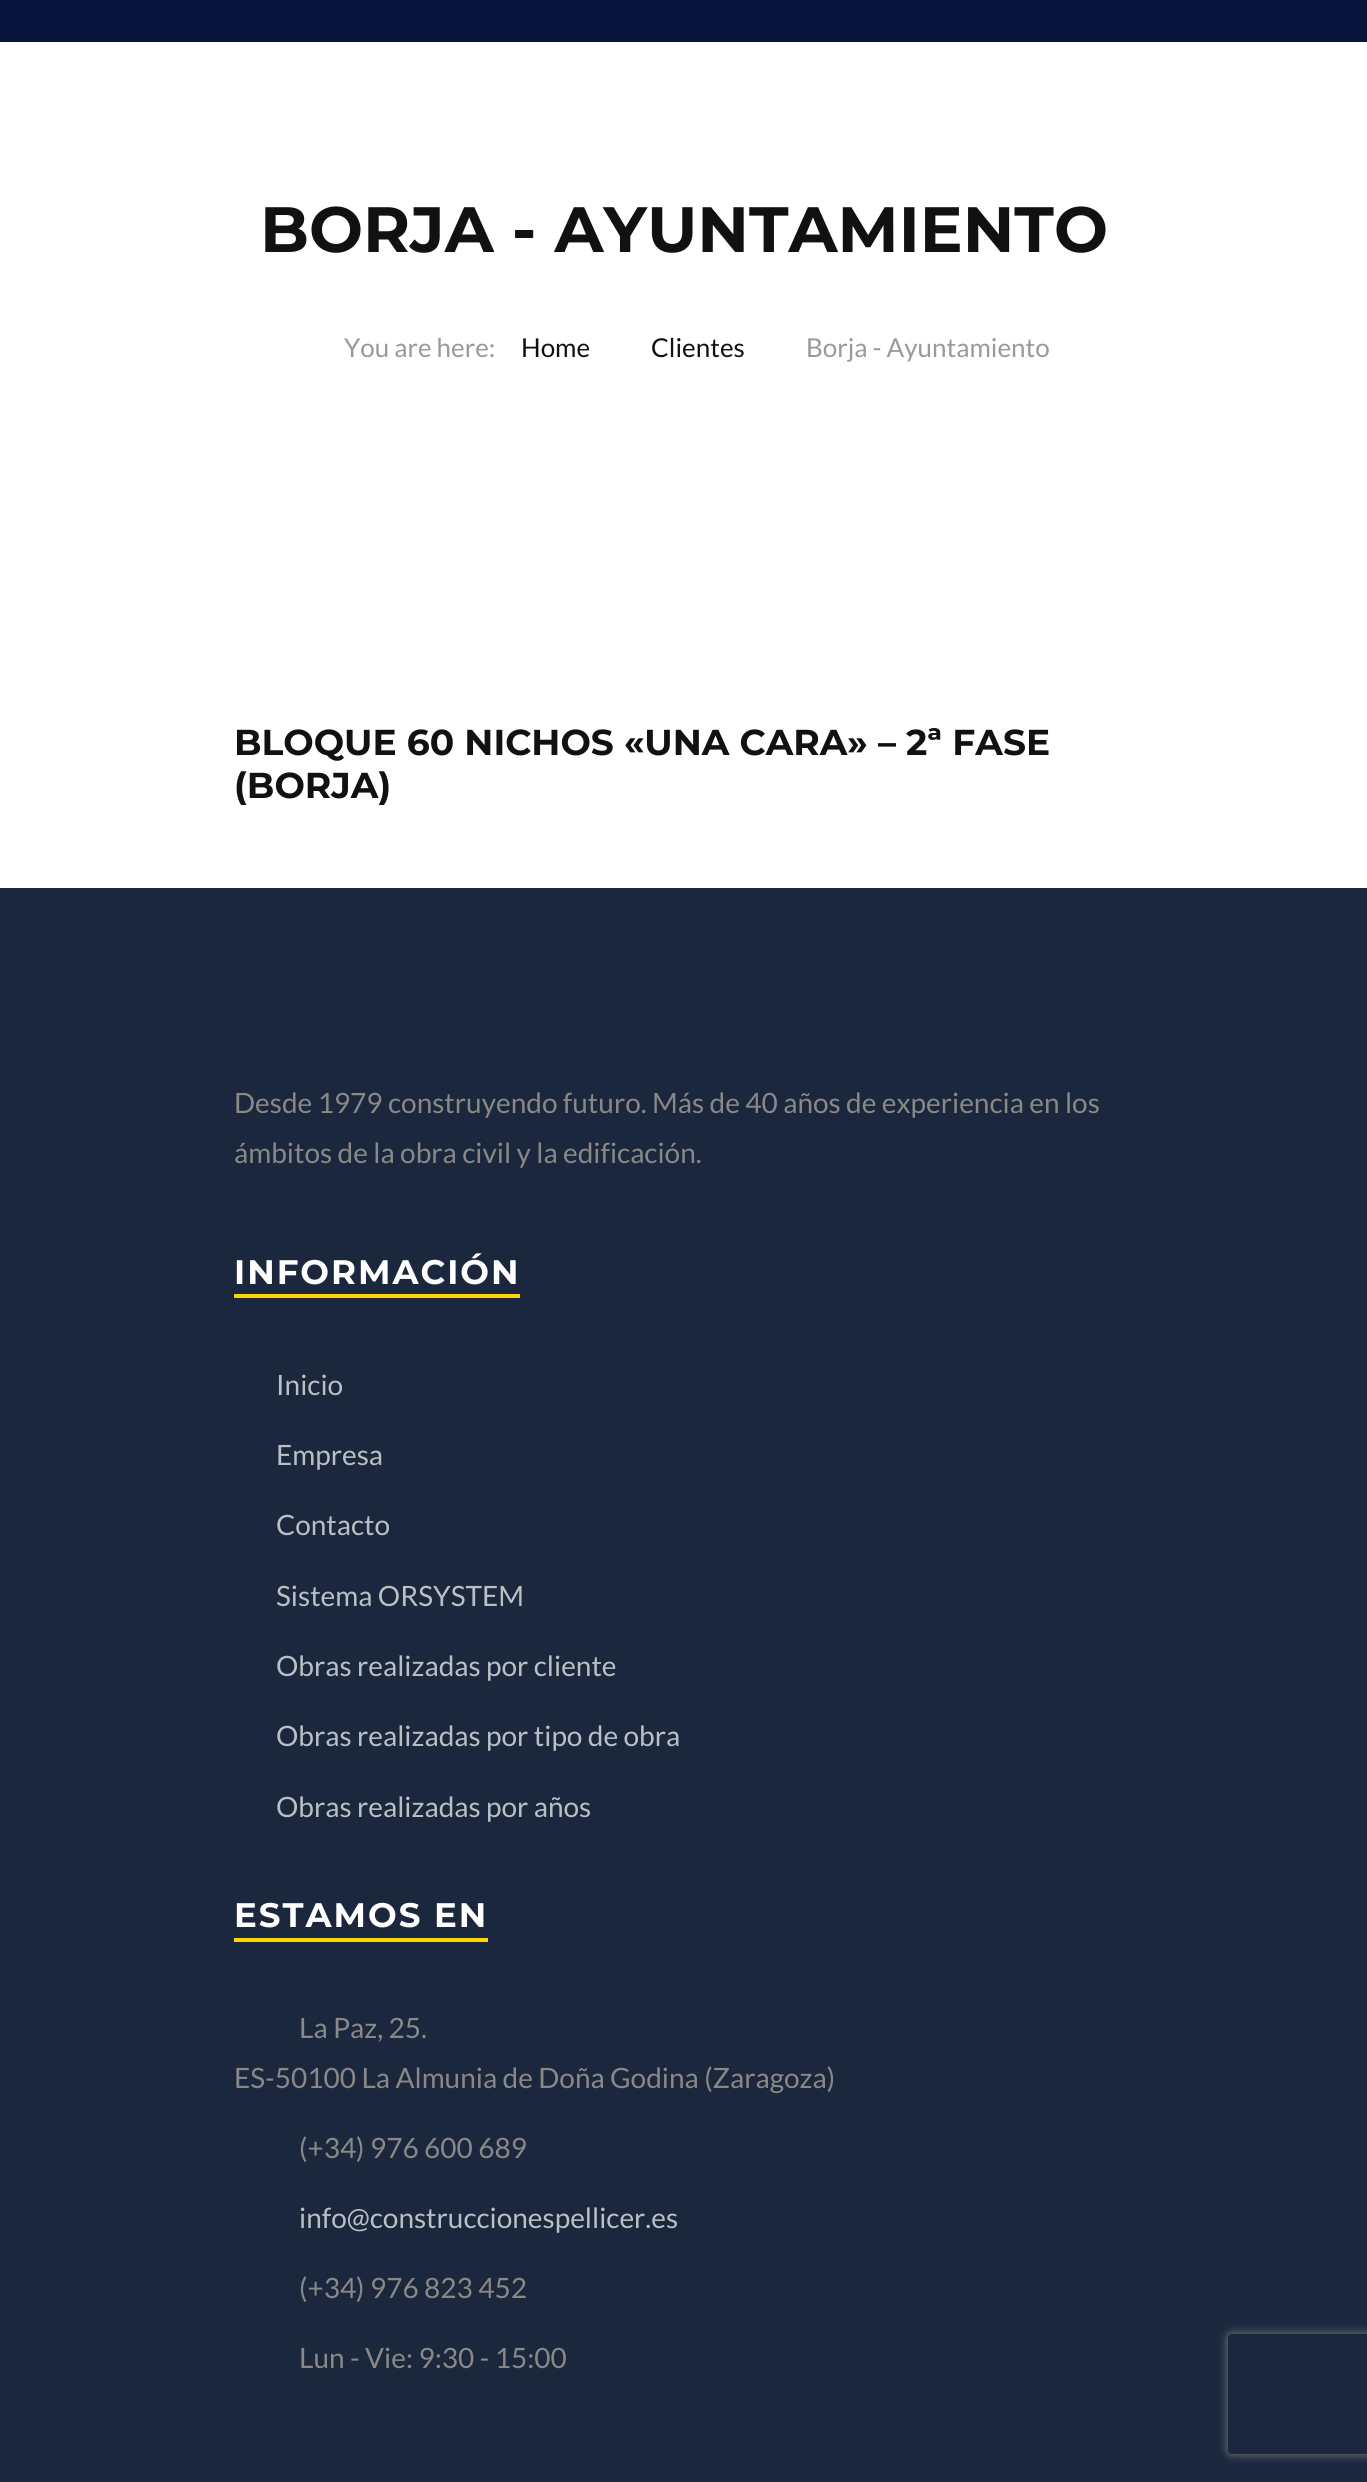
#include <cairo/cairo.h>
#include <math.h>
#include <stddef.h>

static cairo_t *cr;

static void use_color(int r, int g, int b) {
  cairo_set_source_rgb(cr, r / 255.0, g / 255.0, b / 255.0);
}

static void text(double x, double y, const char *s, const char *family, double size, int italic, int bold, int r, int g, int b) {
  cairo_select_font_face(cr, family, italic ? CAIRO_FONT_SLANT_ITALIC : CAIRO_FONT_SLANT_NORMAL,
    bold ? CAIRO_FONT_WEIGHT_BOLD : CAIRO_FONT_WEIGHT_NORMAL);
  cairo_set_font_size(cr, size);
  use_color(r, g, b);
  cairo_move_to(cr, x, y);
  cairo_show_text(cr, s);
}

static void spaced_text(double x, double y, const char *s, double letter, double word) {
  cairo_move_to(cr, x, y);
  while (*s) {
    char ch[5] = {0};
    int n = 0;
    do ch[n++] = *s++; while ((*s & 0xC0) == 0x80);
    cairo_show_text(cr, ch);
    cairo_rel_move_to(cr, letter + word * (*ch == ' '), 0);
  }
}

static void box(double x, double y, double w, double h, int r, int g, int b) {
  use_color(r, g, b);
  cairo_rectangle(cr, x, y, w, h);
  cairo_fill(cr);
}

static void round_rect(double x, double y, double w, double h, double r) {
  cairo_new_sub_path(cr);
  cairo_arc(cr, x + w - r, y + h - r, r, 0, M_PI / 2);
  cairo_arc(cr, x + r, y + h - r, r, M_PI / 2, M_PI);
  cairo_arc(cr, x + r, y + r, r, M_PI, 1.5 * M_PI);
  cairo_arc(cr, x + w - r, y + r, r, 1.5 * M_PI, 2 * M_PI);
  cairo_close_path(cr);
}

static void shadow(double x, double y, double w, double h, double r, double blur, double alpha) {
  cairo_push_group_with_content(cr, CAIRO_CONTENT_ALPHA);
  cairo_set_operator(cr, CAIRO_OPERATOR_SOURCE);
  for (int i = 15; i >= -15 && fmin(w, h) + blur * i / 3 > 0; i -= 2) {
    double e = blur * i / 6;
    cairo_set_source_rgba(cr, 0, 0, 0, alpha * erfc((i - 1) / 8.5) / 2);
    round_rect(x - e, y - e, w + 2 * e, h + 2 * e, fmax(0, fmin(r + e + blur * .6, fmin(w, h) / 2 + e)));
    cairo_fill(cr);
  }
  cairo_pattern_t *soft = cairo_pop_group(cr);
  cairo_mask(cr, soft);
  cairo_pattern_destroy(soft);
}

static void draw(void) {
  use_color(255, 255, 255);
  cairo_paint(cr);
  box(0, 0, 1367, 42, 8, 22, 61);
  box(0, 888, 1367, 1594, 27, 39, 61);
  box(234, 1294, 286, 4, 255, 214, 0);
  box(234, 1938, 254, 4, 255, 214, 0);
  cairo_save(cr);
  cairo_set_fill_rule(cr, CAIRO_FILL_RULE_EVEN_ODD);
  cairo_new_path(cr);
  cairo_move_to(cr, 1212, 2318);
  cairo_line_to(cr, 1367, 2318);
  cairo_line_to(cr, 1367, 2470);
  cairo_line_to(cr, 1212, 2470);
  cairo_close_path(cr);
  cairo_move_to(cr, 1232, 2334);
  cairo_line_to(cr, 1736, 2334);
  cairo_curve_to(cr, 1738, 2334, 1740, 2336, 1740, 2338);
  cairo_line_to(cr, 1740, 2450);
  cairo_curve_to(cr, 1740, 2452, 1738, 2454, 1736, 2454);
  cairo_line_to(cr, 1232, 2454);
  cairo_curve_to(cr, 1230, 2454, 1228, 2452, 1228, 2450);
  cairo_line_to(cr, 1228, 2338);
  cairo_curve_to(cr, 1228, 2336, 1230, 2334, 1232, 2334);
  cairo_close_path(cr);
  cairo_clip(cr);
  use_color(128, 128, 128);
  shadow(1228, 2334, 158, 120, 4, 5, 1);
  cairo_restore(cr);
  text(260, 252, "BORJA - AYUNTAMIENTO", "Montserrat", 64, 0, 1, 17, 17, 17);
  text(344, 357, "You are here:", "Lato", 26, 0, 0, 153, 153, 153);
  text(521, 357, "Home", "Lato", 26, 0, 0, 17, 17, 17);
  text(651, 357, "Clientes", "Lato", 26, 0, 0, 17, 17, 17);
  text(806, 357, "Borja - Ayuntamiento", "Lato", 26, 0, 0, 153, 153, 153);
  text(234, 755, "BLOQUE 60 NICHOS «UNA CARA» – 2ª FASE", "Montserrat", 36, 0, 1, 17, 17, 17);
  text(234, 798, "(BORJA)", "Montserrat", 36, 0, 1, 17, 17, 17);
  text(234, 1113, "Desde 1979 construyendo futuro. Más de 40 años de experiencia en los", "Lato", 28, 0, 0, 136, 136, 136);
  text(234, 1163, "ámbitos de la obra civil y la edificación.", "Lato", 28, 0, 0, 136, 136, 136);
  cairo_select_font_face(cr, "Montserrat", CAIRO_FONT_SLANT_NORMAL, CAIRO_FONT_WEIGHT_BOLD);
  cairo_set_font_size(cr, 34);
  use_color(255, 255, 255);
  spaced_text(234, 1284, "INFORMACIÓN", 2, 0);
  text(276, 1395, "Inicio", "Lato", 28, 0, 0, 186, 191, 197);
  text(276, 1465, "Empresa", "Lato", 28, 0, 0, 186, 191, 197);
  text(276, 1535, "Contacto", "Lato", 28, 0, 0, 186, 191, 197);
  text(276, 1606, "Sistema ORSYSTEM", "Lato", 28, 0, 0, 186, 191, 197);
  text(276, 1676, "Obras realizadas por cliente", "Lato", 28, 0, 0, 186, 191, 197);
  text(276, 1746, "Obras realizadas por tipo de obra", "Lato", 28, 0, 0, 186, 191, 197);
  text(276, 1817, "Obras realizadas por años", "Lato", 28, 0, 0, 186, 191, 197);
  cairo_select_font_face(cr, "Montserrat", CAIRO_FONT_SLANT_NORMAL, CAIRO_FONT_WEIGHT_BOLD);
  cairo_set_font_size(cr, 34);
  use_color(255, 255, 255);
  spaced_text(234, 1927, "ESTAMOS EN", 2, 0);
  text(299, 2038, "La Paz, 25.", "Lato", 28, 0, 0, 136, 136, 136);
  text(234, 2088, "ES-50100 La Almunia de Doña Godina (Zaragoza)", "Lato", 28, 0, 0, 136, 136, 136);
  text(299, 2158, "(+34) 976 600 689", "Lato", 28, 0, 0, 136, 136, 136);
  text(299, 2228, "info@construccionespellicer.es", "Lato", 28, 0, 0, 186, 191, 197);
  text(299, 2298, "(+34) 976 823 452", "Lato", 28, 0, 0, 136, 136, 136);
  text(299, 2368, "Lun - Vie: 9:30 - 15:00", "Lato", 28, 0, 0, 136, 136, 136);
}

int main(void) {
  cairo_surface_t *surface = cairo_image_surface_create(CAIRO_FORMAT_RGB24, 1367, 2482);
  cr = cairo_create(surface);
  cairo_font_options_t *options = cairo_font_options_create();
  cairo_font_options_set_hint_metrics(options, CAIRO_HINT_METRICS_OFF);
  cairo_font_options_set_hint_style(options, CAIRO_HINT_STYLE_NONE);
  cairo_set_font_options(cr, options);
  cairo_set_miter_limit(cr, 4);
  draw();
  cairo_surface_write_to_png(surface, "out.png");
  cairo_font_options_destroy(options);
  cairo_destroy(cr);
  cairo_surface_destroy(surface);
  return 0;
}
